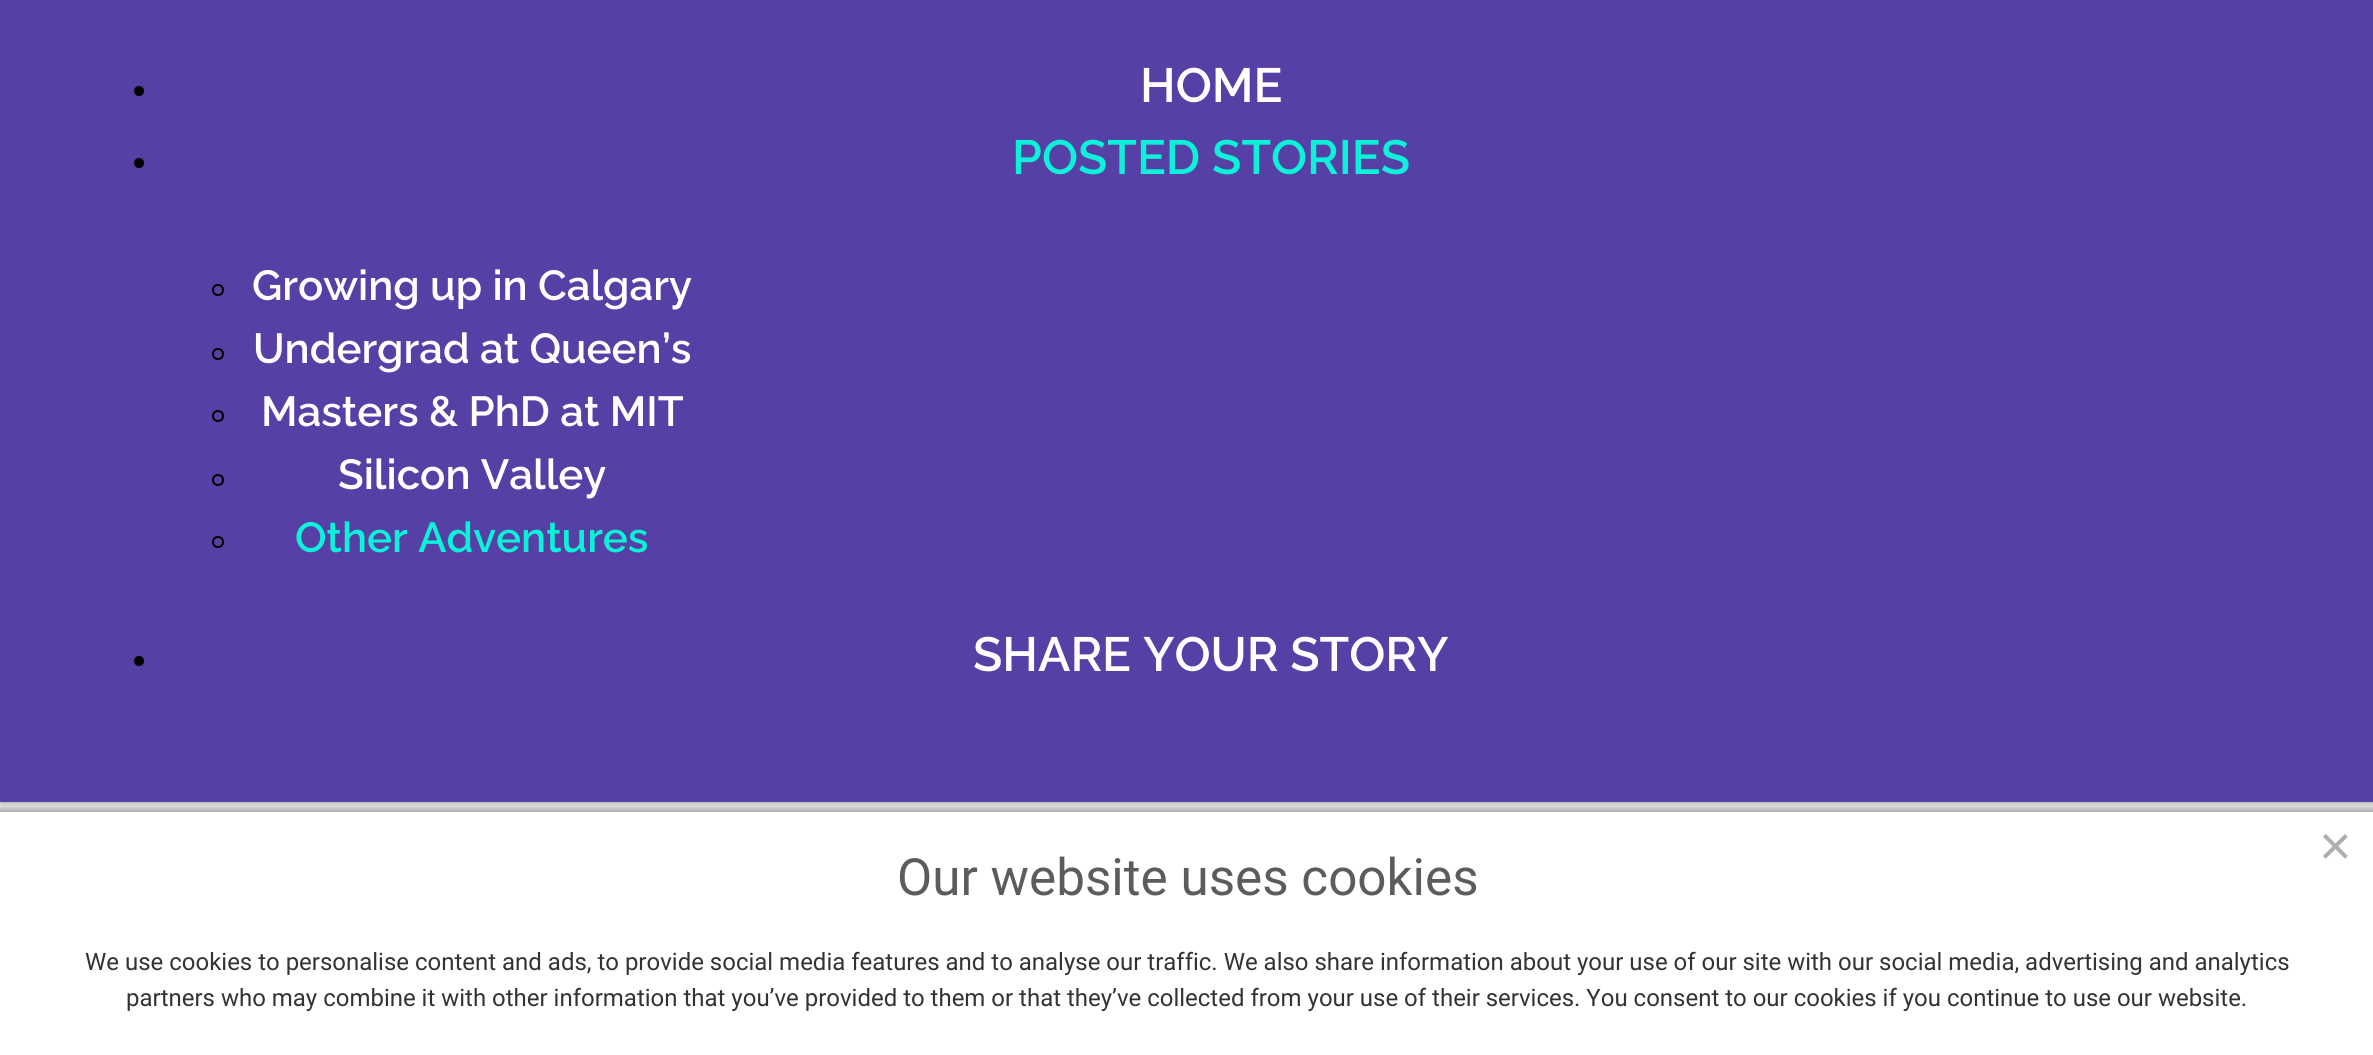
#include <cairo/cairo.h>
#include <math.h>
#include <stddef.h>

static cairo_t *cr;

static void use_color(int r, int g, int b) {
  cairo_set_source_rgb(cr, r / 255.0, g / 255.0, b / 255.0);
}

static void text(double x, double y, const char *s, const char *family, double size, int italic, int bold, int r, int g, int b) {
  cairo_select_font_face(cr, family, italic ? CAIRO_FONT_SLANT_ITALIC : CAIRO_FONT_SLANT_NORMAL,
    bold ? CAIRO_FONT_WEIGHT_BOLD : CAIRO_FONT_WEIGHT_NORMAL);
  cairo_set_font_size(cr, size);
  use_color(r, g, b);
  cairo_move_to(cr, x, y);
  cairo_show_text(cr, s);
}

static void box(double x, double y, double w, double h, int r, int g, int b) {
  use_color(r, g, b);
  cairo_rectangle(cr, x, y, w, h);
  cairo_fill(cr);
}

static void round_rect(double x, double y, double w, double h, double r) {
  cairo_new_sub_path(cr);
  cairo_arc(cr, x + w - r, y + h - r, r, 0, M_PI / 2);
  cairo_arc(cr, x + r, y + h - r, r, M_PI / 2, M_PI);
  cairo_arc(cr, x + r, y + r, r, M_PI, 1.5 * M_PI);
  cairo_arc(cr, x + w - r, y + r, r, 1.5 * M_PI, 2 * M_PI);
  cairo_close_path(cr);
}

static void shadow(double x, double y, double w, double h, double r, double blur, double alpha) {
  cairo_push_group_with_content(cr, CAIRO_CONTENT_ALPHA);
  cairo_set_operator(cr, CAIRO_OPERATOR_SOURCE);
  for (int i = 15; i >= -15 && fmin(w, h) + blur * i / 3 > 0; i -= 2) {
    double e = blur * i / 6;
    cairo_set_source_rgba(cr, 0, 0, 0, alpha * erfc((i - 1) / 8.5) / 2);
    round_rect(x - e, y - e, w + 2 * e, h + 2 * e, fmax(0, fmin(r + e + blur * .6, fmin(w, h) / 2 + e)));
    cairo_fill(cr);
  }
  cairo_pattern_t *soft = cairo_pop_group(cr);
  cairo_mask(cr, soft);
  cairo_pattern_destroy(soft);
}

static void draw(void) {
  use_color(255, 255, 255);
  cairo_paint(cr);
  use_color(0, 0, 0);
  shadow(0, 0, 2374, 802, 0, 5, 0.54);
  box(0, 0, 2373, 802, 86, 64, 166);
  use_color(0, 0, 0);
  cairo_arc(cr, 139, 91, 5, 0, 2 * M_PI);
  cairo_fill(cr);
  cairo_arc(cr, 139, 163, 5, 0, 2 * M_PI);
  cairo_fill(cr);
  cairo_arc(cr, 218, 290, 5, 0, 2 * M_PI);
  cairo_stroke(cr);
  cairo_arc(cr, 218, 354, 5, 0, 2 * M_PI);
  cairo_stroke(cr);
  cairo_arc(cr, 218, 416, 5, 0, 2 * M_PI);
  cairo_stroke(cr);
  cairo_arc(cr, 218, 480, 5, 0, 2 * M_PI);
  cairo_stroke(cr);
  cairo_arc(cr, 218, 542, 5, 0, 2 * M_PI);
  cairo_stroke(cr);
  cairo_arc(cr, 139, 661, 5, 0, 2 * M_PI);
  cairo_fill(cr);
  use_color(0, 0, 1);
  shadow(-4, 808, 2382, 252, 0, 2, 0.3);
  box(0, 812, 2373, 243, 255, 255, 255);
  text(1140, 102, "HOME", "Raleway Thin", 48, 0, 0, 255, 255, 255);
  text(1012, 174, "POSTED STORIES", "Raleway Thin", 48, 0, 0, 12, 241, 218);
  text(252, 300, "Growing up in Calgary", "Raleway Thin", 42, 0, 0, 255, 255, 255);
  text(253, 363, "Undergrad at Queen’s", "Raleway Thin", 42, 0, 0, 255, 255, 255);
  text(261, 426, "Masters & PhD at MIT", "Raleway Thin", 42, 0, 0, 255, 255, 255);
  text(338, 489, "Silicon Valley", "Raleway Thin", 42, 0, 0, 255, 255, 255);
  text(295, 552, "Other Adventures", "Raleway Thin", 42, 0, 0, 12, 241, 218);
  text(973, 671, "SHARE YOUR STORY", "Raleway Thin", 48, 0, 0, 255, 255, 255);
  text(2319, 865, "×", "Liberation Sans", 56, 0, 0, 174, 174, 174);
  text(897, 895, "Our website uses cookies", "Roboto", 51.25, 0, 0, 92, 92, 92);
  text(85, 970, "We use cookies to personalise content and ads, to provide social media features and to analyse our traffic. We also share information about your use of our site with our social media, advertising and analytics", "Roboto", 24, 0, 0, 51, 51, 51);
  text(126, 1006, "partners who may combine it with other information that you’ve provided to them or that they’ve collected from your use of their services. You consent to our cookies if you continue to use our website.", "Roboto", 24, 0, 0, 51, 51, 51);
}

int main(void) {
  cairo_surface_t *surface = cairo_image_surface_create(CAIRO_FORMAT_RGB24, 2373, 1055);
  cr = cairo_create(surface);
  cairo_font_options_t *options = cairo_font_options_create();
  cairo_font_options_set_hint_metrics(options, CAIRO_HINT_METRICS_OFF);
  cairo_font_options_set_hint_style(options, CAIRO_HINT_STYLE_NONE);
  cairo_set_font_options(cr, options);
  cairo_set_miter_limit(cr, 4);
  draw();
  cairo_surface_write_to_png(surface, "out.png");
  cairo_font_options_destroy(options);
  cairo_destroy(cr);
  cairo_surface_destroy(surface);
  return 0;
}
